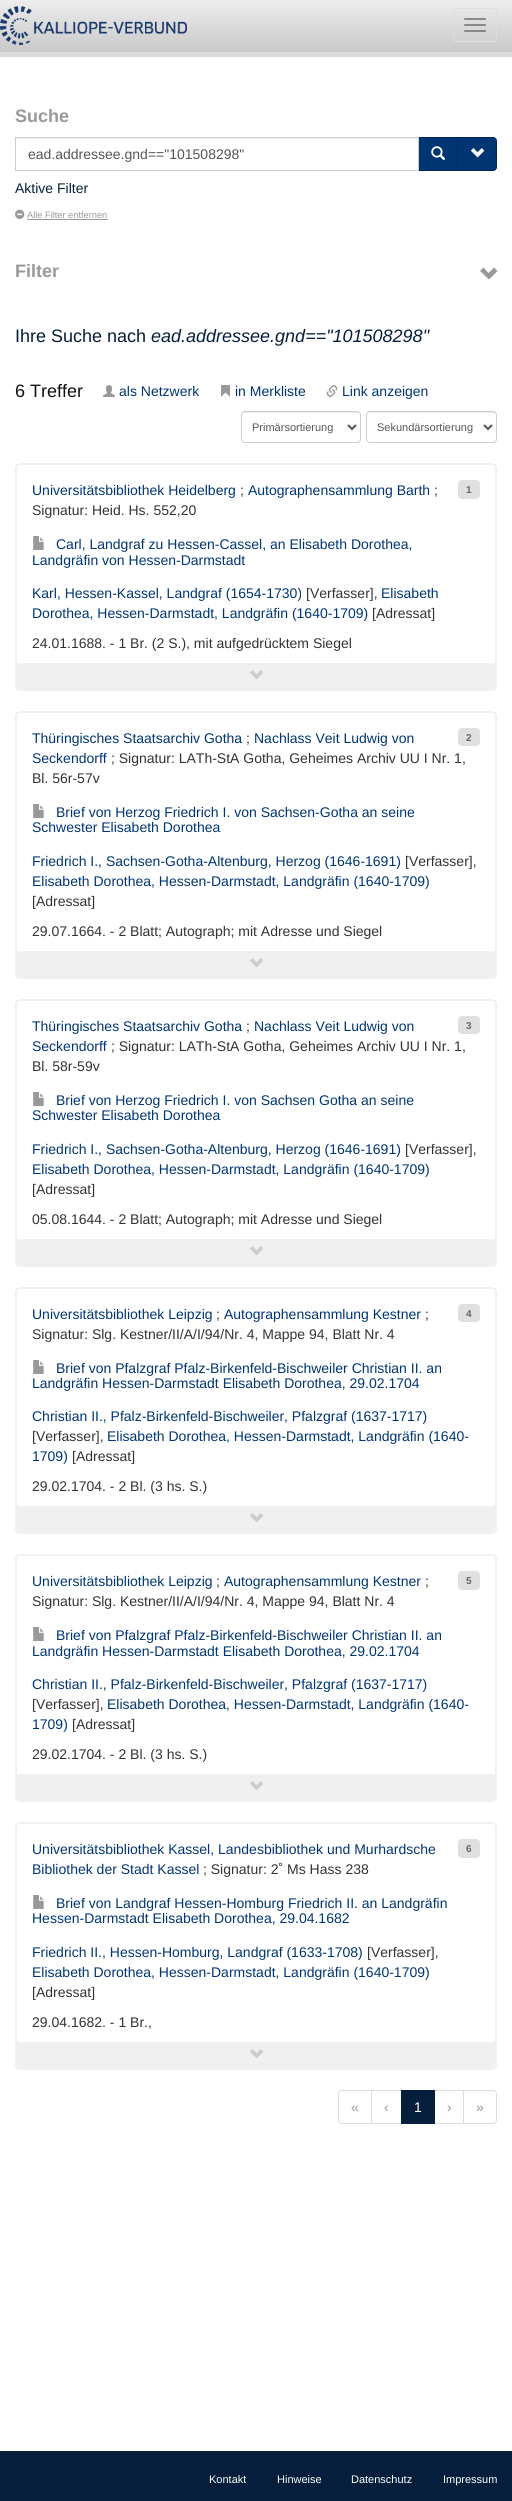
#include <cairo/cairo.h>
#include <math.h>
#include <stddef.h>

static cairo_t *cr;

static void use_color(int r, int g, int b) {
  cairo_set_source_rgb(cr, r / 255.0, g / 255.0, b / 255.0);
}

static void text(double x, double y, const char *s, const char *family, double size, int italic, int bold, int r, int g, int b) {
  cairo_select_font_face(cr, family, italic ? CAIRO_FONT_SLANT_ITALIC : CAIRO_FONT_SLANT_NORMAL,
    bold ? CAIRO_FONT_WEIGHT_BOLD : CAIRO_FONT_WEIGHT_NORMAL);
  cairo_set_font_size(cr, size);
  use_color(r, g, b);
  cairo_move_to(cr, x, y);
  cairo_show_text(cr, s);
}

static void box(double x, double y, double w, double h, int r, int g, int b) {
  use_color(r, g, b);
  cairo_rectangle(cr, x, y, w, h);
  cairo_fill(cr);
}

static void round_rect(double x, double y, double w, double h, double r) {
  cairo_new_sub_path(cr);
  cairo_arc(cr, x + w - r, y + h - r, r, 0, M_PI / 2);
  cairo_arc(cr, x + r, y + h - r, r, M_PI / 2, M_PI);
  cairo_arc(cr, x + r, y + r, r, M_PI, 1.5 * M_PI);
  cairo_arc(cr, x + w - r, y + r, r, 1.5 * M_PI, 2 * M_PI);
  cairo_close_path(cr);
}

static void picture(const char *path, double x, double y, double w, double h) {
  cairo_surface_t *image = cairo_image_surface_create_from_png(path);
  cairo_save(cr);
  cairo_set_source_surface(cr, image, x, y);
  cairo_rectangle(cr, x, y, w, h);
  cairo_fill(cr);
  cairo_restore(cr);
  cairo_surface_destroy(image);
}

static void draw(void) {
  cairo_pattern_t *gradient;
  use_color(255, 255, 255);
  cairo_paint(cr);
  gradient = cairo_pattern_create_linear(256, 0, 256, 52);
  cairo_pattern_add_color_stop_rgba(gradient, 0, 0.929, 0.929, 0.929, 1);
  cairo_pattern_add_color_stop_rgba(gradient, 1, 0.788, 0.788, 0.788, 1);
  cairo_set_source(cr, gradient);
  cairo_pattern_destroy(gradient);
  cairo_rectangle(cr, 0, 0, 512, 52);
  cairo_fill(cr);
  box(0, 52, 512, 5, 217, 217, 217);
  picture("img_01.png", 0, 6, 187, 39);
  round_rect(453.5, 8.5, 43, 33, 3.5);
  use_color(221, 221, 221);
  cairo_set_line_width(cr, 1);
  cairo_stroke(cr);
  use_color(136, 136, 136);
  round_rect(464, 18, 22, 2, 1);
  cairo_fill(cr);
  round_rect(464, 24, 22, 2, 1);
  cairo_fill(cr);
  round_rect(464, 30, 22, 2, 1);
  cairo_fill(cr);
  box(16, 138, 402, 1, 236, 236, 236);
  use_color(0, 53, 116);
  cairo_rectangle(cr, 418.5, 137.5, 39, 33);
  cairo_fill_preserve(cr);
  use_color(0, 41, 90);
  cairo_stroke(cr);
  cairo_rectangle(cr, 15.5, 137.5, 403, 33);
  use_color(204, 204, 204);
  cairo_stroke(cr);
  picture("img_02.png", 431, 146, 15, 15);
  use_color(0, 53, 116);
  cairo_new_path(cr);
  cairo_move_to(cr, 457.5, 137.5);
  cairo_line_to(cr, 493, 137.5);
  cairo_curve_to(cr, 495, 137.5, 496.5, 139, 496.5, 141);
  cairo_line_to(cr, 496.5, 167);
  cairo_curve_to(cr, 496.5, 169, 495, 170.5, 493, 170.5);
  cairo_line_to(cr, 457.5, 170.5);
  cairo_close_path(cr);
  cairo_fill_preserve(cr);
  use_color(0, 41, 90);
  cairo_stroke(cr);
  picture("img_03.png", 470, 148, 15, 10);
  picture("img_04.png", 15, 209, 10, 10);
  box(27, 219, 81, 1, 153, 153, 153);
  cairo_new_path(cr);
  cairo_move_to(cr, 480, 271);
  cairo_line_to(cr, 489, 279.5);
  cairo_line_to(cr, 497.5, 271);
  cairo_line_to(cr, 494, 267.5);
  cairo_line_to(cr, 488.5, 273);
  cairo_line_to(cr, 483.5, 267.5);
  cairo_close_path(cr);
  cairo_fill(cr);
  picture("img_05.png", 103, 385, 12, 12);
  picture("img_06.png", 221, 385, 9, 12);
  picture("img_07.png", 326, 384, 12, 14);
  use_color(236, 236, 236);
  cairo_new_path(cr);
  cairo_move_to(cr, 245, 413);
  cairo_line_to(cr, 357, 413);
  cairo_curve_to(cr, 359, 413, 360, 414, 360, 416);
  cairo_curve_to(cr, 360, 414, 359, 412, 357, 412);
  cairo_line_to(cr, 264, 412);
  cairo_curve_to(cr, 262, 412, 242, 407, 242, 416);
  cairo_curve_to(cr, 242, 414, 243, 413, 245, 413);
  cairo_close_path(cr);
  cairo_fill(cr);
  round_rect(241.5, 411.5, 119, 31, 3.5);
  use_color(204, 204, 204);
  cairo_stroke(cr);
  cairo_new_path(cr);
  cairo_move_to(cr, 348, 425);
  cairo_line_to(cr, 352, 429);
  cairo_line_to(cr, 356, 425);
  use_color(85, 85, 85);
  cairo_set_line_width(cr, 2);
  cairo_stroke(cr);
  use_color(236, 236, 236);
  cairo_new_path(cr);
  cairo_move_to(cr, 370, 413);
  cairo_line_to(cr, 493, 413);
  cairo_curve_to(cr, 495, 413, 496, 414, 496, 416);
  cairo_curve_to(cr, 496, 414, 496, 412, 494, 412);
  cairo_line_to(cr, 370, 412);
  cairo_curve_to(cr, 368, 412, 367, 414, 367, 416);
  cairo_curve_to(cr, 367, 414, 368, 413, 370, 413);
  cairo_close_path(cr);
  cairo_fill(cr);
  round_rect(366.5, 411.5, 130, 31, 3.5);
  use_color(204, 204, 204);
  cairo_set_line_width(cr, 1);
  cairo_stroke(cr);
  cairo_new_path(cr);
  cairo_move_to(cr, 484, 425);
  cairo_line_to(cr, 488, 429);
  cairo_line_to(cr, 492, 425);
  use_color(85, 85, 85);
  cairo_set_line_width(cr, 2);
  cairo_stroke(cr);
  round_rect(16, 464, 480, 226, 4);
  use_color(240, 240, 240);
  cairo_stroke(cr);
  use_color(224, 224, 224);
  round_rect(458, 480, 22, 19, 4);
  cairo_fill(cr);
  picture("img_08.png", 33, 536, 11, 14);
  box(17, 663, 478, 26, 240, 240, 240);
  picture("img_09.png", 250, 670, 13, 10);
  round_rect(16, 712, 480, 266, 4);
  cairo_stroke(cr);
  use_color(224, 224, 224);
  round_rect(458, 728, 22, 18, 4);
  cairo_fill(cr);
  picture("img_08.png", 33, 804, 11, 14);
  box(17, 951, 478, 26, 240, 240, 240);
  picture("img_09.png", 250, 958, 13, 10);
  round_rect(16, 1000, 480, 266, 4);
  cairo_stroke(cr);
  use_color(224, 224, 224);
  round_rect(458, 1016, 22, 18, 4);
  cairo_fill(cr);
  picture("img_08.png", 33, 1092, 11, 14);
  box(17, 1239, 478, 26, 240, 240, 240);
  picture("img_09.png", 250, 1246, 13, 10);
  round_rect(16, 1288, 480, 245, 4);
  cairo_stroke(cr);
  use_color(224, 224, 224);
  round_rect(458, 1304, 22, 18, 4);
  cairo_fill(cr);
  picture("img_08.png", 33, 1360, 11, 14);
  box(17, 1506, 478, 26, 240, 240, 240);
  picture("img_09.png", 250, 1513, 13, 10);
  round_rect(16, 1555, 480, 246, 4);
  cairo_stroke(cr);
  use_color(224, 224, 224);
  round_rect(458, 1571, 22, 19, 4);
  cairo_fill(cr);
  picture("img_08.png", 33, 1627, 11, 14);
  box(17, 1774, 478, 26, 240, 240, 240);
  picture("img_09.png", 250, 1781, 13, 10);
  round_rect(16, 1823, 480, 246, 4);
  cairo_stroke(cr);
  use_color(224, 224, 224);
  round_rect(458, 1839, 22, 19, 4);
  cairo_fill(cr);
  picture("img_08.png", 33, 1895, 11, 14);
  box(17, 2042, 478, 26, 240, 240, 240);
  picture("img_09.png", 250, 2049, 13, 10);
  cairo_new_path(cr);
  cairo_move_to(cr, 342, 2090.5);
  cairo_line_to(cr, 371.5, 2090.5);
  cairo_line_to(cr, 371.5, 2123.5);
  cairo_line_to(cr, 342, 2123.5);
  cairo_curve_to(cr, 340, 2123.5, 338.5, 2122, 338.5, 2120);
  cairo_line_to(cr, 338.5, 2094);
  cairo_curve_to(cr, 338.5, 2092, 340, 2090.5, 342, 2090.5);
  cairo_close_path(cr);
  use_color(221, 221, 221);
  cairo_set_line_width(cr, 1);
  cairo_stroke(cr);
  cairo_rectangle(cr, 371.5, 2090.5, 30, 33);
  cairo_stroke(cr);
  cairo_rectangle(cr, 434.5, 2090.5, 29, 33);
  cairo_stroke(cr);
  box(401, 2090, 34, 34, 5, 30, 60);
  use_color(255, 255, 255);
  cairo_new_path(cr);
  cairo_move_to(cr, 463.5, 2090.5);
  cairo_line_to(cr, 493, 2090.5);
  cairo_curve_to(cr, 495, 2090.5, 496.5, 2092, 496.5, 2094);
  cairo_line_to(cr, 496.5, 2120);
  cairo_curve_to(cr, 496.5, 2122, 495, 2123.5, 493, 2123.5);
  cairo_line_to(cr, 463.5, 2123.5);
  cairo_close_path(cr);
  cairo_fill_preserve(cr);
  use_color(221, 221, 221);
  cairo_stroke(cr);
  box(0, 2451, 512, 50, 5, 30, 60);
  text(15, 122, "Suche", "Liberation Sans", 18, 0, 1, 153, 153, 153);
  text(28, 159, "ead.addressee.gnd==\"101508298\"", "Liberation Sans", 14, 0, 0, 85, 85, 85);
  text(15, 193, "Aktive Filter", "Liberation Sans", 14, 0, 0, 5, 30, 60);
  text(27, 218, "Alle Filter entfernen", "Liberation Sans", 9.25, 0, 0, 153, 153, 153);
  text(15, 277, "Filter", "Liberation Sans", 18, 0, 1, 153, 153, 153);
  text(15, 342, "Ihre Suche nach", "Liberation Sans", 18, 0, 0, 5, 30, 60);
  text(151, 342, "ead.addressee.gnd==\"101508298\"", "Liberation Sans", 18, 1, 0, 5, 30, 60);
  text(15, 397, "6 Treffer", "Liberation Sans", 18, 0, 0, 17, 17, 17);
  text(119, 396, "als Netzwerk", "Liberation Sans", 14, 0, 0, 0, 53, 116);
  text(235, 396, "in Merkliste", "Liberation Sans", 14, 0, 0, 0, 53, 116);
  text(342, 396, "Link anzeigen", "Liberation Sans", 14, 0, 0, 0, 53, 116);
  text(252, 431, "Primärsortierung", "Liberation Sans", 11, 0, 0, 85, 85, 85);
  text(377, 431, "Sekundärsortierung", "Liberation Sans", 11, 0, 0, 85, 85, 85);
  text(32, 495, "Universitätsbibliothek Heidelberg", "Liberation Sans", 14, 0, 0, 0, 53, 116);
  text(240, 495, ";", "Liberation Sans", 14, 0, 0, 51, 51, 51);
  text(248, 495, "Autographensammlung Barth", "Liberation Sans", 14, 0, 0, 0, 53, 116);
  text(434, 495, ";", "Liberation Sans", 14, 0, 0, 51, 51, 51);
  text(32, 515, "Signatur: Heid. Hs. 552,20", "Liberation Sans", 14, 0, 0, 51, 51, 51);
  text(466, 493, "1", "Liberation Sans", 10, 0, 1, 102, 102, 102);
  text(56, 549, "Carl, Landgraf zu Hessen-Cassel, an Elisabeth Dorothea,", "Liberation Sans", 14, 0, 0, 0, 53, 116);
  text(32, 565, "Landgräfin von Hessen-Darmstadt", "Liberation Sans", 14, 0, 0, 0, 53, 116);
  text(32, 598, "Karl, Hessen-Kassel, Landgraf (1654-1730)", "Liberation Sans", 14, 0, 0, 0, 53, 116);
  text(306, 598, "[Verfasser],", "Liberation Sans", 14, 0, 0, 51, 51, 51);
  text(381, 598, "Elisabeth", "Liberation Sans", 14, 0, 0, 0, 53, 116);
  text(32, 618, "Dorothea, Hessen-Darmstadt, Landgräfin (1640-1709)", "Liberation Sans", 14, 0, 0, 0, 53, 116);
  text(372, 618, "[Adressat]", "Liberation Sans", 14, 0, 0, 51, 51, 51);
  text(32, 648, "24.01.1688. - 1 Br. (2 S.), mit aufgedrücktem Siegel", "Liberation Sans", 14, 0, 0, 51, 51, 51);
  text(32, 743, "Thüringisches Staatsarchiv Gotha", "Liberation Sans", 14, 0, 0, 0, 53, 116);
  text(246, 743, ";", "Liberation Sans", 14, 0, 0, 51, 51, 51);
  text(254, 743, "Nachlass Veit Ludwig von", "Liberation Sans", 14, 0, 0, 0, 53, 116);
  text(32, 763, "Seckendorff", "Liberation Sans", 14, 0, 0, 0, 53, 116);
  text(111, 763, "; Signatur: LATh-StA Gotha, Geheimes Archiv UU I Nr. 1,", "Liberation Sans", 14, 0, 0, 51, 51, 51);
  text(32, 783, "Bl. 56r-57v", "Liberation Sans", 14, 0, 0, 51, 51, 51);
  text(466, 741, "2", "Liberation Sans", 10, 0, 1, 102, 102, 102);
  text(56, 817, "Brief von Herzog Friedrich I. von Sachsen-Gotha an seine", "Liberation Sans", 14, 0, 0, 0, 53, 116);
  text(32, 832, "Schwester Elisabeth Dorothea", "Liberation Sans", 14, 0, 0, 0, 53, 116);
  text(32, 866, "Friedrich I., Sachsen-Gotha-Altenburg, Herzog (1646-1691)", "Liberation Sans", 14, 0, 0, 0, 53, 116);
  text(405, 866, "[Verfasser],", "Liberation Sans", 14, 0, 0, 51, 51, 51);
  text(32, 886, "Elisabeth Dorothea, Hessen-Darmstadt, Landgräfin (1640-1709)", "Liberation Sans", 14, 0, 0, 0, 53, 116);
  text(32, 906, "[Adressat]", "Liberation Sans", 14, 0, 0, 51, 51, 51);
  text(32, 936, "29.07.1664. - 2 Blatt; Autograph; mit Adresse und Siegel", "Liberation Sans", 14, 0, 0, 51, 51, 51);
  text(32, 1031, "Thüringisches Staatsarchiv Gotha", "Liberation Sans", 14, 0, 0, 0, 53, 116);
  text(246, 1031, ";", "Liberation Sans", 14, 0, 0, 51, 51, 51);
  text(254, 1031, "Nachlass Veit Ludwig von", "Liberation Sans", 14, 0, 0, 0, 53, 116);
  text(32, 1051, "Seckendorff", "Liberation Sans", 14, 0, 0, 0, 53, 116);
  text(111, 1051, "; Signatur: LATh-StA Gotha, Geheimes Archiv UU I Nr. 1,", "Liberation Sans", 14, 0, 0, 51, 51, 51);
  text(32, 1071, "Bl. 58r-59v", "Liberation Sans", 14, 0, 0, 51, 51, 51);
  text(466, 1029, "3", "Liberation Sans", 10, 0, 1, 102, 102, 102);
  text(56, 1105, "Brief von Herzog Friedrich I. von Sachsen Gotha an seine", "Liberation Sans", 14, 0, 0, 0, 53, 116);
  text(32, 1120, "Schwester Elisabeth Dorothea", "Liberation Sans", 14, 0, 0, 0, 53, 116);
  text(32, 1154, "Friedrich I., Sachsen-Gotha-Altenburg, Herzog (1646-1691)", "Liberation Sans", 14, 0, 0, 0, 53, 116);
  text(405, 1154, "[Verfasser],", "Liberation Sans", 14, 0, 0, 51, 51, 51);
  text(32, 1174, "Elisabeth Dorothea, Hessen-Darmstadt, Landgräfin (1640-1709)", "Liberation Sans", 14, 0, 0, 0, 53, 116);
  text(32, 1194, "[Adressat]", "Liberation Sans", 14, 0, 0, 51, 51, 51);
  text(32, 1224, "05.08.1644. - 2 Blatt; Autograph; mit Adresse und Siegel", "Liberation Sans", 14, 0, 0, 51, 51, 51);
  text(32, 1319, "Universitätsbibliothek Leipzig", "Liberation Sans", 14, 0, 0, 0, 53, 116);
  text(216, 1319, ";", "Liberation Sans", 14, 0, 0, 51, 51, 51);
  text(224, 1319, "Autographensammlung Kestner", "Liberation Sans", 14, 0, 0, 0, 53, 116);
  text(425, 1319, ";", "Liberation Sans", 14, 0, 0, 51, 51, 51);
  text(32, 1339, "Signatur: Slg. Kestner/II/A/I/94/Nr. 4, Mappe 94, Blatt Nr. 4", "Liberation Sans", 14, 0, 0, 51, 51, 51);
  text(466, 1317, "4", "Liberation Sans", 10, 0, 1, 102, 102, 102);
  text(56, 1373, "Brief von Pfalzgraf Pfalz-Birkenfeld-Bischweiler Christian II. an", "Liberation Sans", 14, 0, 0, 0, 53, 116);
  text(32, 1388, "Landgräfin Hessen-Darmstadt Elisabeth Dorothea, 29.02.1704", "Liberation Sans", 14, 0, 0, 0, 53, 116);
  text(32, 1421, "Christian II., Pfalz-Birkenfeld-Bischweiler, Pfalzgraf (1637-1717)", "Liberation Sans", 14, 0, 0, 0, 53, 116);
  text(32, 1441, "[Verfasser],", "Liberation Sans", 14, 0, 0, 51, 51, 51);
  text(107, 1441, "Elisabeth Dorothea, Hessen-Darmstadt, Landgräfin (1640-", "Liberation Sans", 14, 0, 0, 0, 53, 116);
  text(32, 1461, "1709)", "Liberation Sans", 14, 0, 0, 0, 53, 116);
  text(72, 1461, "[Adressat]", "Liberation Sans", 14, 0, 0, 51, 51, 51);
  text(32, 1491, "29.02.1704. - 2 Bl. (3 hs. S.)", "Liberation Sans", 14, 0, 0, 51, 51, 51);
  text(32, 1586, "Universitätsbibliothek Leipzig", "Liberation Sans", 14, 0, 0, 0, 53, 116);
  text(216, 1586, ";", "Liberation Sans", 14, 0, 0, 51, 51, 51);
  text(224, 1586, "Autographensammlung Kestner", "Liberation Sans", 14, 0, 0, 0, 53, 116);
  text(425, 1586, ";", "Liberation Sans", 14, 0, 0, 51, 51, 51);
  text(32, 1606, "Signatur: Slg. Kestner/II/A/I/94/Nr. 4, Mappe 94, Blatt Nr. 4", "Liberation Sans", 14, 0, 0, 51, 51, 51);
  text(466, 1584, "5", "Liberation Sans", 10, 0, 1, 102, 102, 102);
  text(56, 1640, "Brief von Pfalzgraf Pfalz-Birkenfeld-Bischweiler Christian II. an", "Liberation Sans", 14, 0, 0, 0, 53, 116);
  text(32, 1656, "Landgräfin Hessen-Darmstadt Elisabeth Dorothea, 29.02.1704", "Liberation Sans", 14, 0, 0, 0, 53, 116);
  text(32, 1689, "Christian II., Pfalz-Birkenfeld-Bischweiler, Pfalzgraf (1637-1717)", "Liberation Sans", 14, 0, 0, 0, 53, 116);
  text(32, 1709, "[Verfasser],", "Liberation Sans", 14, 0, 0, 51, 51, 51);
  text(107, 1709, "Elisabeth Dorothea, Hessen-Darmstadt, Landgräfin (1640-", "Liberation Sans", 14, 0, 0, 0, 53, 116);
  text(32, 1729, "1709)", "Liberation Sans", 14, 0, 0, 0, 53, 116);
  text(72, 1729, "[Adressat]", "Liberation Sans", 14, 0, 0, 51, 51, 51);
  text(32, 1759, "29.02.1704. - 2 Bl. (3 hs. S.)", "Liberation Sans", 14, 0, 0, 51, 51, 51);
  text(32, 1854, "Universitätsbibliothek Kassel, Landesbibliothek und Murhardsche", "Liberation Sans", 14, 0, 0, 0, 53, 116);
  text(32, 1874, "Bibliothek der Stadt Kassel", "Liberation Sans", 14, 0, 0, 0, 53, 116);
  text(203, 1874, "; Signatur: 2˚ Ms Hass 238", "Liberation Sans", 14, 0, 0, 51, 51, 51);
  text(466, 1852, "6", "Liberation Sans", 10, 0, 1, 102, 102, 102);
  text(56, 1908, "Brief von Landgraf Hessen-Homburg Friedrich II. an Landgräfin", "Liberation Sans", 14, 0, 0, 0, 53, 116);
  text(32, 1923, "Hessen-Darmstadt Elisabeth Dorothea, 29.04.1682", "Liberation Sans", 14, 0, 0, 0, 53, 116);
  text(32, 1957, "Friedrich II., Hessen-Homburg, Landgraf (1633-1708)", "Liberation Sans", 14, 0, 0, 0, 53, 116);
  text(367, 1957, "[Verfasser],", "Liberation Sans", 14, 0, 0, 51, 51, 51);
  text(32, 1977, "Elisabeth Dorothea, Hessen-Darmstadt, Landgräfin (1640-1709)", "Liberation Sans", 14, 0, 0, 0, 53, 116);
  text(32, 1997, "[Adressat]", "Liberation Sans", 14, 0, 0, 51, 51, 51);
  text(32, 2027, "29.04.1682. - 1 Br.,", "Liberation Sans", 14, 0, 0, 51, 51, 51);
  text(351, 2112, "«", "Liberation Sans", 14, 0, 0, 153, 153, 153);
  text(384, 2112, "‹", "Liberation Sans", 14, 0, 0, 153, 153, 153);
  text(414, 2112, "1", "Liberation Sans", 14, 0, 0, 255, 255, 255);
  text(447, 2112, "›", "Liberation Sans", 14, 0, 0, 153, 153, 153);
  text(476, 2112, "»", "Liberation Sans", 14, 0, 0, 153, 153, 153);
  text(209, 2483, "Kontakt", "Liberation Sans", 11, 0, 0, 255, 255, 255);
  text(277, 2483, "Hinweise", "Liberation Sans", 11, 0, 0, 255, 255, 255);
  text(351, 2483, "Datenschutz", "Liberation Sans", 11, 0, 0, 255, 255, 255);
  text(443, 2483, "Impressum", "Liberation Sans", 11, 0, 0, 255, 255, 255);
}

int main(void) {
  cairo_surface_t *surface = cairo_image_surface_create(CAIRO_FORMAT_RGB24, 512, 2501);
  cr = cairo_create(surface);
  cairo_font_options_t *options = cairo_font_options_create();
  cairo_font_options_set_hint_metrics(options, CAIRO_HINT_METRICS_OFF);
  cairo_font_options_set_hint_style(options, CAIRO_HINT_STYLE_NONE);
  cairo_set_font_options(cr, options);
  cairo_set_miter_limit(cr, 4);
  draw();
  cairo_surface_write_to_png(surface, "out.png");
  cairo_font_options_destroy(options);
  cairo_destroy(cr);
  cairo_surface_destroy(surface);
  return 0;
}
